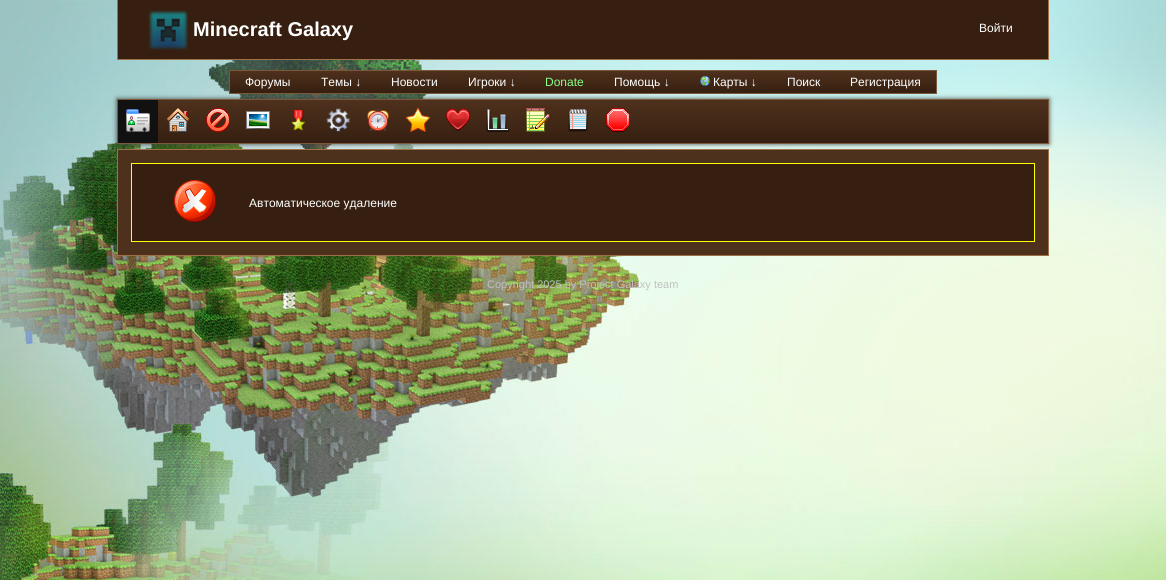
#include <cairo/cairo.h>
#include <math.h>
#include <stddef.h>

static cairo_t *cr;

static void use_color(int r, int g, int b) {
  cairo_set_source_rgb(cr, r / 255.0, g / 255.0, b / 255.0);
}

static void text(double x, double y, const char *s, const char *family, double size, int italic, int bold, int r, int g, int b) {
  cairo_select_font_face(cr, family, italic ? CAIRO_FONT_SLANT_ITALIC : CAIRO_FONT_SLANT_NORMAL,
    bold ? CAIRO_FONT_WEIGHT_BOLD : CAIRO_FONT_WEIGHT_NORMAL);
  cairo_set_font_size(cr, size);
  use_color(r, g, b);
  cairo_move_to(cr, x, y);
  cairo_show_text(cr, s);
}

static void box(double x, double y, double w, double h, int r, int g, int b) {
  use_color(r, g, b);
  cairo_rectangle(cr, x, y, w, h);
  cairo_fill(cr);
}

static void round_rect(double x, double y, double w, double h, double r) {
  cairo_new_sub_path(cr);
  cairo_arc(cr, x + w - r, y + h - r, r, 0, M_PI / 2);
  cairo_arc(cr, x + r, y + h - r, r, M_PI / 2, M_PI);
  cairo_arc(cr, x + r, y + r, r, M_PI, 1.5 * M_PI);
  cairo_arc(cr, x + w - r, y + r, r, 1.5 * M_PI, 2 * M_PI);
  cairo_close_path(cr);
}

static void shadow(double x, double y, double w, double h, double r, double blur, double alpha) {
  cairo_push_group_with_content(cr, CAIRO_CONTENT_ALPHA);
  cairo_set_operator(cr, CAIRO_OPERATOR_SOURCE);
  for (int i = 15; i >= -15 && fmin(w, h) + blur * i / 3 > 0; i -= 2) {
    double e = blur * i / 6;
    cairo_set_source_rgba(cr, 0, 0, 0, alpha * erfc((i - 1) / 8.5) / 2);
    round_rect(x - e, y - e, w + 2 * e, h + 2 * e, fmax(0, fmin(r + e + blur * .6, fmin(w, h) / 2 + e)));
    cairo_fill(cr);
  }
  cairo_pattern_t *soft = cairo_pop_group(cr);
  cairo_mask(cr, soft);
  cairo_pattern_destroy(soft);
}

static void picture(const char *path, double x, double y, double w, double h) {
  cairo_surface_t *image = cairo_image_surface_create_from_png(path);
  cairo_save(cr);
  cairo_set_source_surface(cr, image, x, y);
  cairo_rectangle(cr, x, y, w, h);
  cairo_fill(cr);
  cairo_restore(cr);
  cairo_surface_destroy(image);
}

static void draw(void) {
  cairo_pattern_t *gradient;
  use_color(255, 255, 255);
  cairo_paint(cr);
  picture("img_01.png", 0, 0, 1166, 580);
  box(118, 0, 930, 59, 54, 31, 16);
  box(1048, 0, 1, 60, 159, 113, 75);
  box(117, 59, 932, 1, 159, 113, 75);
  box(117, 0, 1, 60, 159, 113, 75);
  picture("img_02.png", 148, 10, 40, 40);
  use_color(68, 68, 68);
  shadow(117, 99, 932, 45, 0, 2.5, 1);
  gradient = cairo_pattern_create_linear(230, 71, 230, 93);
  cairo_pattern_add_color_stop_rgba(gradient, 0, 0.306, 0.192, 0.114, 1);
  cairo_pattern_add_color_stop_rgba(gradient, 1, 0.212, 0.122, 0.063, 1);
  cairo_set_source(cr, gradient);
  cairo_pattern_destroy(gradient);
  cairo_rectangle(cr, 230, 71, 706, 22);
  cairo_fill(cr);
  cairo_rectangle(cr, 229.5, 70.5, 707, 23);
  use_color(124, 88, 58);
  cairo_set_line_width(cr, 1);
  cairo_stroke(cr);
  picture("img_03.png", 700, 76, 10, 10);
  gradient = cairo_pattern_create_linear(118, 100, 118, 143);
  cairo_pattern_add_color_stop_rgba(gradient, 0, 0.306, 0.192, 0.114, 1);
  cairo_pattern_add_color_stop_rgba(gradient, 1, 0.212, 0.122, 0.063, 1);
  cairo_set_source(cr, gradient);
  cairo_pattern_destroy(gradient);
  cairo_rectangle(cr, 158, 100, 890, 43);
  cairo_fill(cr);
  cairo_rectangle(cr, 117.5, 99.5, 931, 44);
  use_color(124, 88, 58);
  cairo_stroke(cr);
  box(118, 100, 40, 43, 17, 17, 17);
  picture("img_04.png", 126, 109, 24, 23);
  picture("img_05.png", 167, 108, 22, 24);
  picture("img_06.png", 206, 108, 24, 24);
  picture("img_07.png", 246, 111, 24, 18);
  picture("img_08.png", 291, 109, 15, 22);
  picture("img_09.png", 326, 108, 24, 24);
  picture("img_10.png", 367, 109, 22, 22);
  picture("img_11.png", 406, 108, 24, 24);
  picture("img_12.png", 446, 108, 24, 23);
  picture("img_13.png", 486, 109, 24, 23);
  picture("img_14.png", 526, 108, 24, 24);
  picture("img_15.png", 568, 109, 20, 23);
  picture("img_16.png", 606, 108, 24, 24);
  use_color(78, 49, 29);
  cairo_rectangle(cr, 117.5, 149.5, 931, 106);
  cairo_fill_preserve(cr);
  use_color(159, 113, 75);
  cairo_stroke(cr);
  use_color(54, 31, 16);
  cairo_rectangle(cr, 131.5, 163.5, 903, 78);
  cairo_fill_preserve(cr);
  use_color(255, 255, 0);
  cairo_stroke(cr);
  picture("img_17.png", 174, 180, 42, 42);
  text(193, 36, "Minecraft Galaxy", "Liberation Sans", 20, 0, 1, 255, 255, 255);
  text(979, 32, "Войти", "Liberation Sans", 12, 0, 0, 255, 255, 255);
  text(245, 86, "Форумы", "Liberation Sans", 12, 0, 0, 255, 255, 255);
  text(321, 86, "Темы ↓", "Liberation Sans", 12, 0, 0, 255, 255, 255);
  text(391, 86, "Новости", "Liberation Sans", 12, 0, 0, 255, 255, 255);
  text(468, 86, "Игроки ↓", "Liberation Sans", 12, 0, 0, 255, 255, 255);
  text(545, 86, "Donate", "Liberation Sans", 12, 0, 0, 136, 255, 136);
  text(614, 86, "Помощь ↓", "Liberation Sans", 12, 0, 0, 255, 255, 255);
  text(713, 86, "Карты ↓", "Liberation Sans", 12, 0, 0, 255, 255, 255);
  text(787, 86, "Поиск", "Liberation Sans", 12, 0, 0, 255, 255, 255);
  text(850, 86, "Регистрация", "Liberation Sans", 12, 0, 0, 255, 255, 255);
  text(249, 207, "Автоматическое удаление", "Liberation Sans", 12, 0, 0, 255, 255, 255);
  text(487, 288, "Copyright 2025 by Project Galaxy team", "Liberation Sans", 11, 0, 0, 192, 192, 192);
}

int main(void) {
  cairo_surface_t *surface = cairo_image_surface_create(CAIRO_FORMAT_RGB24, 1166, 580);
  cr = cairo_create(surface);
  cairo_font_options_t *options = cairo_font_options_create();
  cairo_font_options_set_hint_metrics(options, CAIRO_HINT_METRICS_OFF);
  cairo_font_options_set_hint_style(options, CAIRO_HINT_STYLE_NONE);
  cairo_set_font_options(cr, options);
  cairo_set_miter_limit(cr, 4);
  draw();
  cairo_surface_write_to_png(surface, "out.png");
  cairo_font_options_destroy(options);
  cairo_destroy(cr);
  cairo_surface_destroy(surface);
  return 0;
}
